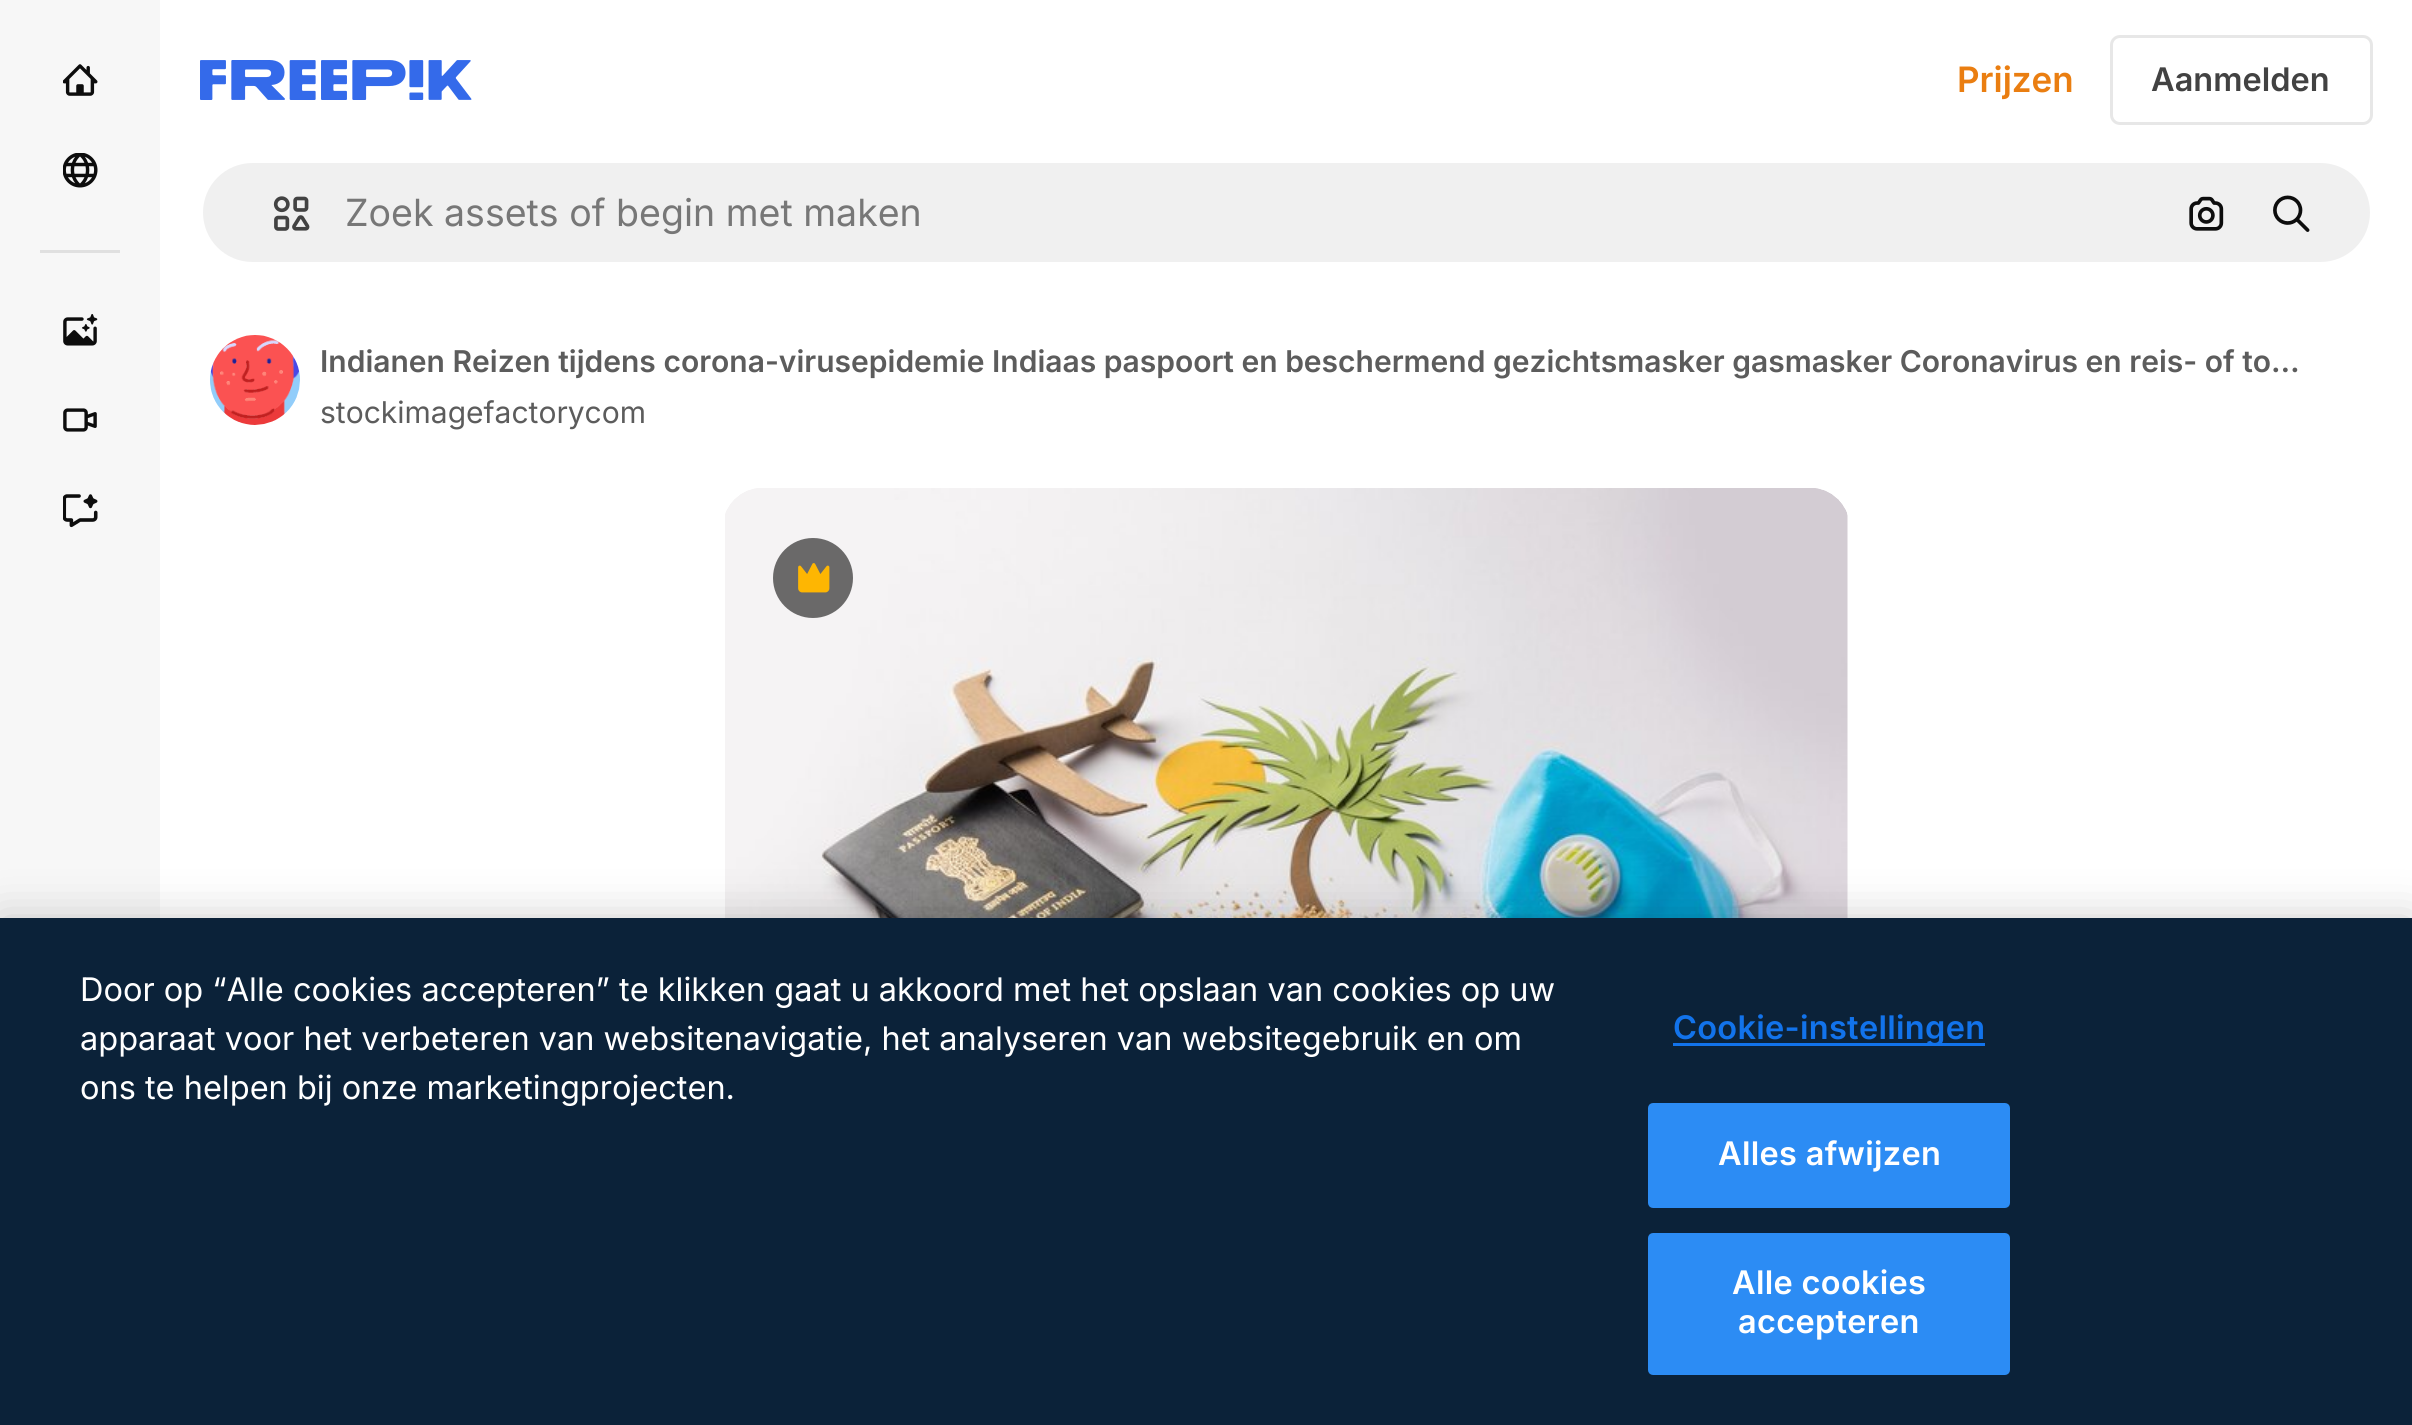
#include <cairo/cairo.h>
#include <math.h>
#include <stddef.h>

static cairo_t *cr;

static void use_color(int r, int g, int b) {
  cairo_set_source_rgb(cr, r / 255.0, g / 255.0, b / 255.0);
}

static void text(double x, double y, const char *s, const char *family, double size, int italic, int bold, int r, int g, int b) {
  cairo_select_font_face(cr, family, italic ? CAIRO_FONT_SLANT_ITALIC : CAIRO_FONT_SLANT_NORMAL,
    bold ? CAIRO_FONT_WEIGHT_BOLD : CAIRO_FONT_WEIGHT_NORMAL);
  cairo_set_font_size(cr, size);
  use_color(r, g, b);
  cairo_move_to(cr, x, y);
  cairo_show_text(cr, s);
}

static void spaced_text(double x, double y, const char *s, double letter, double word) {
  cairo_move_to(cr, x, y);
  while (*s) {
    char ch[5] = {0};
    int n = 0;
    do ch[n++] = *s++; while ((*s & 0xC0) == 0x80);
    cairo_show_text(cr, ch);
    cairo_rel_move_to(cr, letter + word * (*ch == ' '), 0);
  }
}

static void box(double x, double y, double w, double h, int r, int g, int b) {
  use_color(r, g, b);
  cairo_rectangle(cr, x, y, w, h);
  cairo_fill(cr);
}

static void round_rect(double x, double y, double w, double h, double r) {
  cairo_new_sub_path(cr);
  cairo_arc(cr, x + w - r, y + h - r, r, 0, M_PI / 2);
  cairo_arc(cr, x + r, y + h - r, r, M_PI / 2, M_PI);
  cairo_arc(cr, x + r, y + r, r, M_PI, 1.5 * M_PI);
  cairo_arc(cr, x + w - r, y + r, r, 1.5 * M_PI, 2 * M_PI);
  cairo_close_path(cr);
}

static void shadow(double x, double y, double w, double h, double r, double blur, double alpha) {
  cairo_push_group_with_content(cr, CAIRO_CONTENT_ALPHA);
  cairo_set_operator(cr, CAIRO_OPERATOR_SOURCE);
  for (int i = 15; i >= -15 && fmin(w, h) + blur * i / 3 > 0; i -= 2) {
    double e = blur * i / 6;
    cairo_set_source_rgba(cr, 0, 0, 0, alpha * erfc((i - 1) / 8.5) / 2);
    round_rect(x - e, y - e, w + 2 * e, h + 2 * e, fmax(0, fmin(r + e + blur * .6, fmin(w, h) / 2 + e)));
    cairo_fill(cr);
  }
  cairo_pattern_t *soft = cairo_pop_group(cr);
  cairo_mask(cr, soft);
  cairo_pattern_destroy(soft);
}

static void picture(const char *path, double x, double y, double w, double h) {
  cairo_surface_t *image = cairo_image_surface_create_from_png(path);
  cairo_save(cr);
  cairo_set_source_surface(cr, image, x, y);
  cairo_rectangle(cr, x, y, w, h);
  cairo_fill(cr);
  cairo_restore(cr);
  cairo_surface_destroy(image);
}

static void draw(void) {
  use_color(255, 255, 255);
  cairo_paint(cr);
  box(0, 0, 160, 918, 247, 247, 247);
  picture("img_01.png", 63, 64, 35, 32);
  picture("img_02.png", 63, 153, 35, 35);
  box(40, 250, 80, 3, 224, 224, 224);
  picture("img_03.png", 63, 314, 35, 32);
  picture("img_04.png", 63, 408, 34, 24);
  picture("img_05.png", 63, 494, 35, 34);
  picture("img_06.png", 200, 60, 272, 40);
  round_rect(2111.5, 36.5, 260, 87, 8.5);
  use_color(231, 231, 231);
  cairo_set_line_width(cr, 3);
  cairo_stroke(cr);
  use_color(240, 240, 240);
  round_rect(201.5, 161.5, 2170, 102, 51);
  cairo_fill_preserve(cr);
  use_color(255, 255, 255);
  cairo_stroke(cr);
  picture("img_07.png", 273, 196, 37, 35);
  picture("img_08.png", 2189, 196, 35, 35);
  picture("img_09.png", 2273, 195, 37, 37);
  picture("img_10.png", 210, 335, 90, 90);
  picture("img_11.png", 725, 488, 1123, 430);
  use_color(106, 105, 105);
  cairo_arc(cr, 813, 578, 40, 0, 2 * M_PI);
  cairo_fill(cr);
  picture("img_12.png", 798, 563, 32, 30);
  use_color(0, 0, 0);
  shadow(0, 918, 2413, 507, 0, 22.5, 0.2);
  box(0, 918, 2412, 507, 11, 34, 57);
  box(1673, 1043, 312, 3, 18, 115, 235);
  use_color(44, 140, 244);
  round_rect(1649.5, 1104.5, 359, 102, 3.5);
  cairo_fill_preserve(cr);
  cairo_stroke(cr);
  round_rect(1649.5, 1234.5, 359, 139, 3.5);
  cairo_fill_preserve(cr);
  cairo_stroke(cr);
  text(1957, 92, "Prijzen", "Inter SemiBold", 35, 0, 0, 234, 126, 17);
  text(2151, 91, "Aanmelden", "Inter SemiBold", 32.5, 0, 0, 66, 66, 66);
  text(345, 226, "Zoek assets of begin met maken", "Inter", 37.5, 0, 0, 119, 119, 119);
  text(320, 372, "Indianen Reizen tijdens corona-virusepidemie Indiaas paspoort en beschermend gezichtsmasker gasmasker Coronavirus en reis- of to…", "Inter SemiBold", 30, 0, 0, 92, 92, 92);
  text(320, 423, "stockimagefactorycom", "Inter", 30, 0, 0, 92, 92, 92);
  text(80, 1001, "Door op “Alle cookies accepteren” te klikken gaat u akkoord met het opslaan van cookies op uw", "Inter", 32.5, 0, 0, 255, 255, 255);
  text(80, 1050, "apparaat voor het verbeteren van websitenavigatie, het analyseren van websitegebruik en om", "Inter", 32.5, 0, 0, 255, 255, 255);
  text(80, 1099, "ons te helpen bij onze marketingprojecten.", "Inter", 32.5, 0, 0, 255, 255, 255);
  cairo_select_font_face(cr, "Inter SemiBold", CAIRO_FONT_SLANT_NORMAL, CAIRO_FONT_WEIGHT_NORMAL);
  use_color(18, 115, 235);
  spaced_text(1673, 1039, "Cookie-instellingen", 0.3, 0);
  use_color(255, 255, 255);
  spaced_text(1718, 1165, "Alles afwijzen", 0.3, 0);
  spaced_text(1732, 1294, "Alle cookies", 0.3, 0);
  spaced_text(1738, 1333, "accepteren", 0.3, 0);
}

int main(void) {
  cairo_surface_t *surface = cairo_image_surface_create(CAIRO_FORMAT_RGB24, 2412, 1425);
  cr = cairo_create(surface);
  cairo_font_options_t *options = cairo_font_options_create();
  cairo_font_options_set_hint_metrics(options, CAIRO_HINT_METRICS_OFF);
  cairo_font_options_set_hint_style(options, CAIRO_HINT_STYLE_NONE);
  cairo_set_font_options(cr, options);
  cairo_set_miter_limit(cr, 4);
  draw();
  cairo_surface_write_to_png(surface, "out.png");
  cairo_font_options_destroy(options);
  cairo_destroy(cr);
  cairo_surface_destroy(surface);
  return 0;
}
